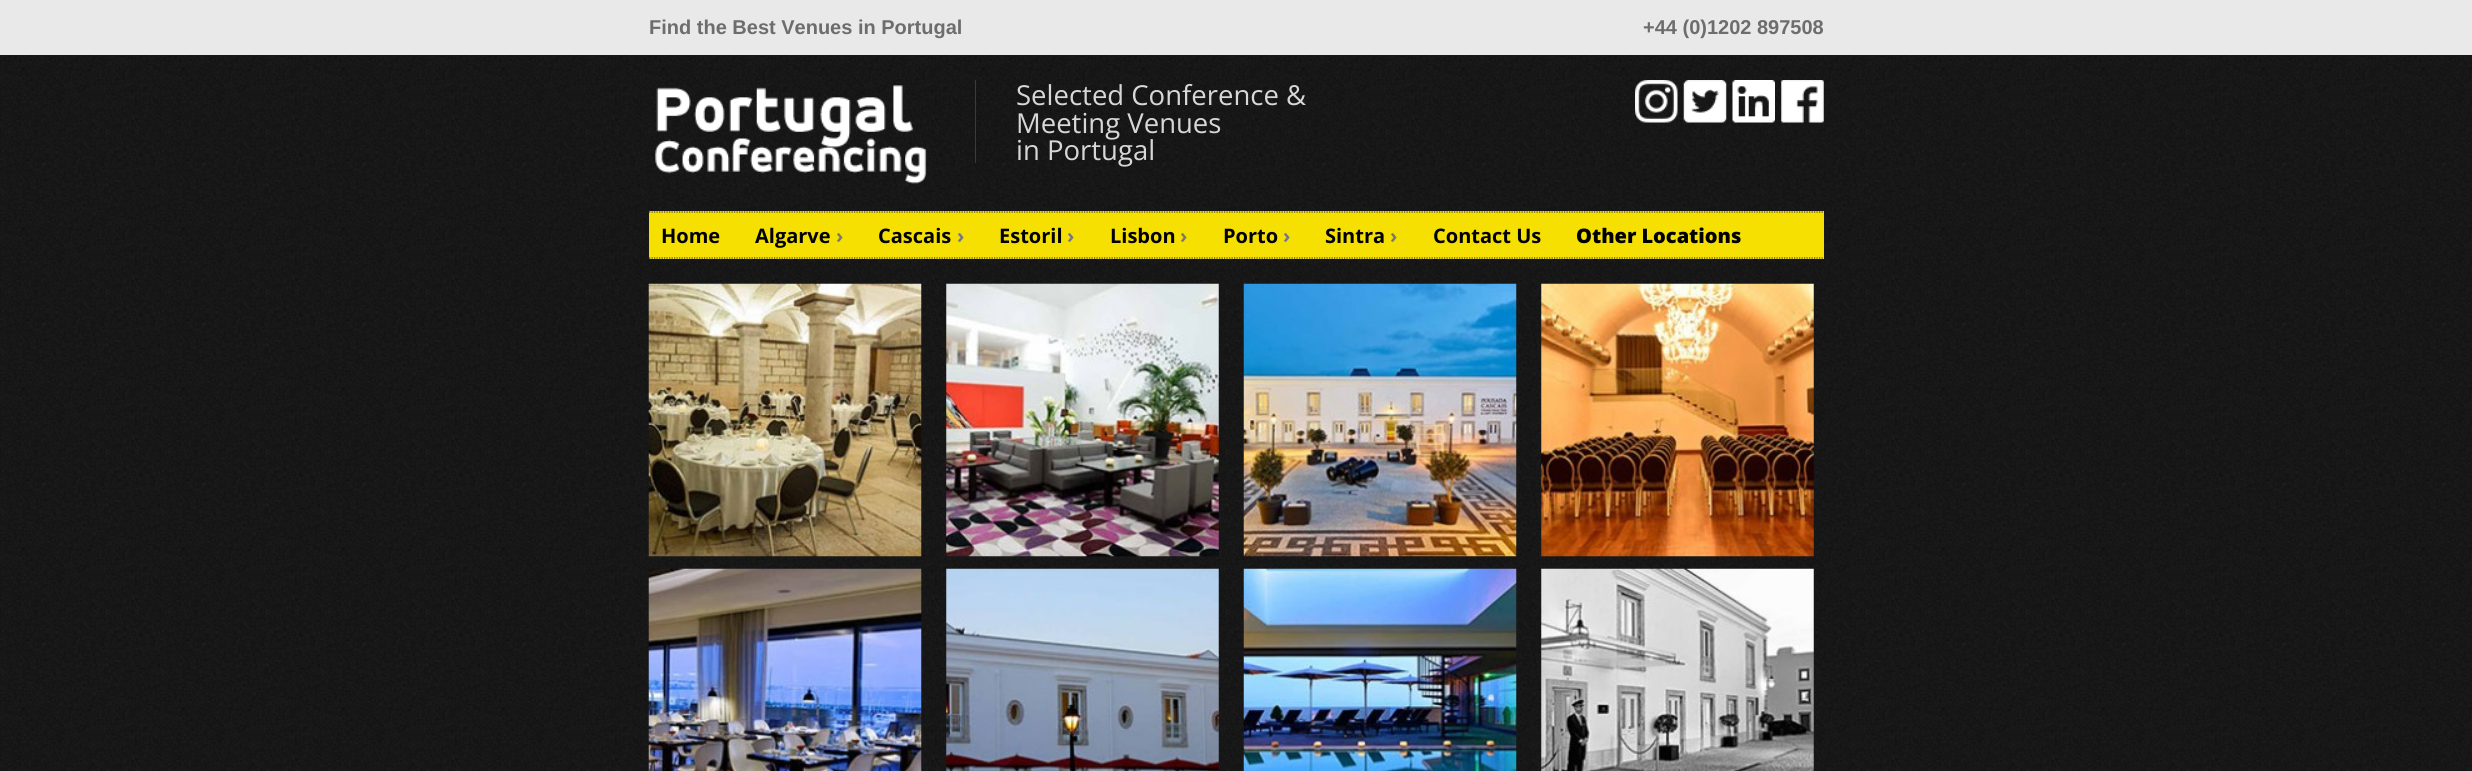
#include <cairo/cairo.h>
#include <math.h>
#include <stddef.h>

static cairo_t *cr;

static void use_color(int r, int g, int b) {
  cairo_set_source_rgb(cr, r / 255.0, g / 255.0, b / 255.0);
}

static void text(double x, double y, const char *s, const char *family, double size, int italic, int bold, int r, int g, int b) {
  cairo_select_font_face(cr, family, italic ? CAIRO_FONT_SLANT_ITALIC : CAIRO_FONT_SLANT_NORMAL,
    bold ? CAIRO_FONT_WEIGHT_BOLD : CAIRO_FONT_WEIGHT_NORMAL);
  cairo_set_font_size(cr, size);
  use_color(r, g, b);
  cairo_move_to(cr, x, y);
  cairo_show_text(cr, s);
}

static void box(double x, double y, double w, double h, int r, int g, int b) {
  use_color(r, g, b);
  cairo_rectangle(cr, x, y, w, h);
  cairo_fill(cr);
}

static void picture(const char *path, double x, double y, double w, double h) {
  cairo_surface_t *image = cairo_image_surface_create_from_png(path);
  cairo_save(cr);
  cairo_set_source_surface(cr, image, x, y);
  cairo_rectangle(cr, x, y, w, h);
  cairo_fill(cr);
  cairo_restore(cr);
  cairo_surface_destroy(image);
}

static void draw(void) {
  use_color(233, 233, 233);
  cairo_paint(cr);
  picture("img_01.png", 0, 55, 2472, 716);
  picture("img_02.png", 655, 85, 272, 99);
  box(975, 80, 1, 83, 59, 59, 59);
  picture("img_03.png", 1635, 80, 43, 43);
  picture("img_04.png", 1683, 80, 44, 43);
  picture("img_05.png", 1732, 80, 43, 43);
  picture("img_06.png", 1781, 80, 43, 43);
  box(649, 211, 1175, 48, 246, 224, 1);
  cairo_new_path(cr);
  cairo_move_to(cr, 649, 212);
  cairo_line_to(cr, 1824, 212);
  use_color(67, 67, 67);
  cairo_set_line_width(cr, 1.2);
  cairo_set_dash(cr, (double[]){1.25, 1.25}, 2, 0);
  cairo_stroke(cr);
  cairo_new_path(cr);
  cairo_move_to(cr, 649, 258);
  cairo_line_to(cr, 1824, 258);
  cairo_stroke(cr);
  picture("img_07.png", 648, 283, 274, 274);
  picture("img_08.png", 946, 283, 273, 274);
  picture("img_09.png", 1243, 283, 274, 274);
  picture("img_10.png", 1541, 283, 273, 274);
  picture("img_11.png", 648, 568, 274, 203);
  picture("img_12.png", 946, 568, 273, 203);
  picture("img_13.png", 1243, 568, 274, 203);
  picture("img_14.png", 1541, 568, 273, 203);
  text(649, 34, "Find the Best Venues in Portugal", "Liberation Sans", 20, 0, 1, 109, 109, 109);
  text(1643, 34, "+44 (0)1202 897508", "Liberation Sans", 20, 0, 1, 109, 109, 109);
  text(1016, 105, "Selected Conference &", "Open Sans", 27.5, 0, 0, 215, 215, 215);
  text(1016, 133, "Meeting Venues", "Open Sans", 27.5, 0, 0, 215, 215, 215);
  text(1016, 160, "in Portugal", "Open Sans", 27.5, 0, 0, 215, 215, 215);
  text(661, 243, "Home", "Open Sans", 20, 0, 1, 0, 0, 0);
  text(755, 243, "Algarve", "Open Sans", 20, 0, 1, 0, 0, 0);
  text(836, 243, "›", "Open Sans", 20, 0, 1, 119, 119, 119);
  text(878, 243, "Cascais", "Open Sans", 20, 0, 1, 0, 0, 0);
  text(957, 243, "›", "Open Sans", 20, 0, 1, 119, 119, 119);
  text(999, 243, "Estoril", "Open Sans", 20, 0, 1, 0, 0, 0);
  text(1067, 243, "›", "Open Sans", 20, 0, 1, 119, 119, 119);
  text(1110, 243, "Lisbon", "Open Sans", 20, 0, 1, 0, 0, 0);
  text(1180, 243, "›", "Open Sans", 20, 0, 1, 119, 119, 119);
  text(1223, 243, "Porto", "Open Sans", 20, 0, 1, 0, 0, 0);
  text(1283, 243, "›", "Open Sans", 20, 0, 1, 119, 119, 119);
  text(1325, 243, "Sintra", "Open Sans", 20, 0, 1, 0, 0, 0);
  text(1390, 243, "›", "Open Sans", 20, 0, 1, 119, 119, 119);
  text(1433, 243, "Contact Us", "Open Sans", 20, 0, 1, 0, 0, 0);
  text(1576, 243, "Other Locations", "Open Sans ExtraBold", 20, 0, 0, 0, 0, 0);
}

int main(void) {
  cairo_surface_t *surface = cairo_image_surface_create(CAIRO_FORMAT_RGB24, 2472, 771);
  cr = cairo_create(surface);
  cairo_font_options_t *options = cairo_font_options_create();
  cairo_font_options_set_hint_metrics(options, CAIRO_HINT_METRICS_OFF);
  cairo_font_options_set_hint_style(options, CAIRO_HINT_STYLE_NONE);
  cairo_set_font_options(cr, options);
  cairo_set_miter_limit(cr, 4);
  draw();
  cairo_surface_write_to_png(surface, "out.png");
  cairo_font_options_destroy(options);
  cairo_destroy(cr);
  cairo_surface_destroy(surface);
  return 0;
}
